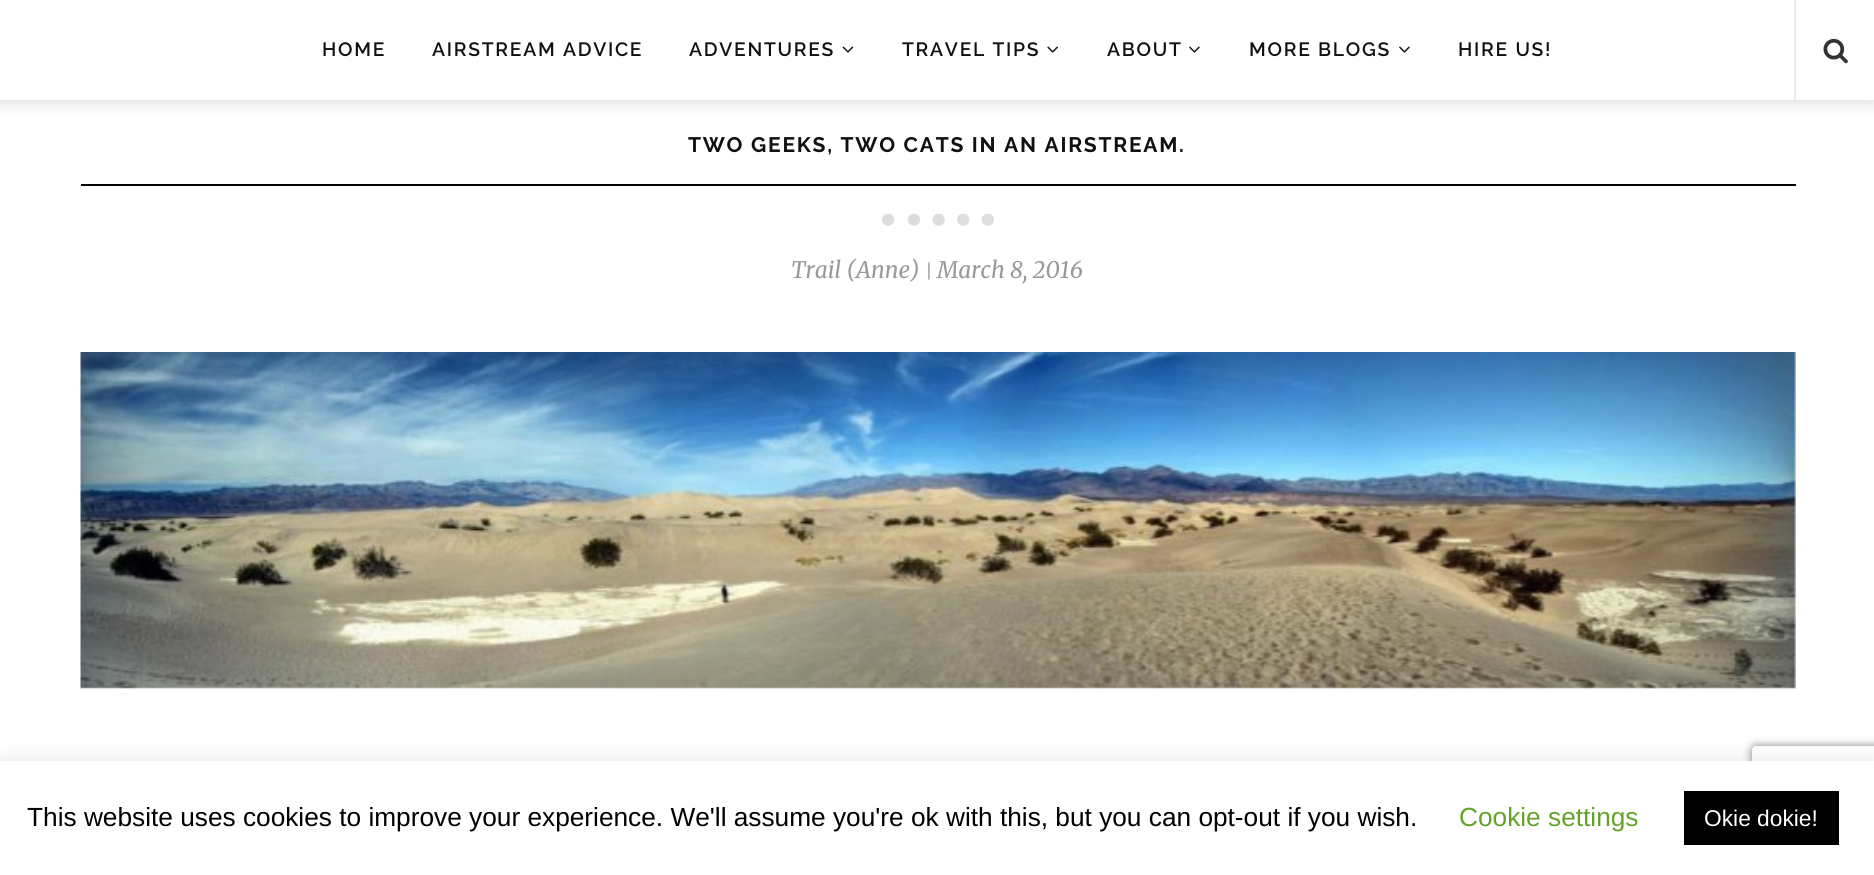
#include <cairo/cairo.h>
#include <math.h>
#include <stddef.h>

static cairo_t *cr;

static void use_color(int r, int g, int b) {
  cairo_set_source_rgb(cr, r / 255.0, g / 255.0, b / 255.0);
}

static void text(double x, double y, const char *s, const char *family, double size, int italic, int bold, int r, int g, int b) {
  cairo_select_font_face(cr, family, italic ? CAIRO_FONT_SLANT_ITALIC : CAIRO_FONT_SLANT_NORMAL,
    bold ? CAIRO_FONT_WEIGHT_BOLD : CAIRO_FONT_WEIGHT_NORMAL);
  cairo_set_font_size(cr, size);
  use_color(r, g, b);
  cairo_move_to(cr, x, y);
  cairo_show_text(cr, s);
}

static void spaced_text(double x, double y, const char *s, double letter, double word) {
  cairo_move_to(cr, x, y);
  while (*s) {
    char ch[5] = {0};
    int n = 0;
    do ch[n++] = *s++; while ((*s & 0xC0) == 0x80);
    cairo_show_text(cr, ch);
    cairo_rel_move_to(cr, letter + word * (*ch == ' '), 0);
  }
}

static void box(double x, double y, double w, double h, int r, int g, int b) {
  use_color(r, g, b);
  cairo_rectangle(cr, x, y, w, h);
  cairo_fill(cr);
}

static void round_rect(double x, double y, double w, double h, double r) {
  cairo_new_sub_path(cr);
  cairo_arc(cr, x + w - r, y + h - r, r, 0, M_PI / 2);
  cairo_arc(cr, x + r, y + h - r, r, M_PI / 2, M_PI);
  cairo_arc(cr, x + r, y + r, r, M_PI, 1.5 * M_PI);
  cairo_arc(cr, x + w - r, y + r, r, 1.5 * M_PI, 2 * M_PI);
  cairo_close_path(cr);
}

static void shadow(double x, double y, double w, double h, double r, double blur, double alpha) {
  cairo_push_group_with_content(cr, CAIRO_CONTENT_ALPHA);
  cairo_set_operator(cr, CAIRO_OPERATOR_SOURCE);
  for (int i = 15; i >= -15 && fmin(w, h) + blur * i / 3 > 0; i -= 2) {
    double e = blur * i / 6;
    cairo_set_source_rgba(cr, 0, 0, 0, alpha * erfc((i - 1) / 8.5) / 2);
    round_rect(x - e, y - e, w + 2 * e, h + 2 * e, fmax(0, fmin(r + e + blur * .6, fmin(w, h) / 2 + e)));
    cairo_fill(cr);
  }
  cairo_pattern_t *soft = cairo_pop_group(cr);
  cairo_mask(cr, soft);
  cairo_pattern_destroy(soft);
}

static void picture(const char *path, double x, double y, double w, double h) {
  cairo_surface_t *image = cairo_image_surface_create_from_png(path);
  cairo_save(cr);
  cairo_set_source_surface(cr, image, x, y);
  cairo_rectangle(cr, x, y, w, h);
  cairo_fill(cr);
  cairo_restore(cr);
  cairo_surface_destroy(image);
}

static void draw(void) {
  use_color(255, 255, 255);
  cairo_paint(cr);
  use_color(0, 0, 0);
  shadow(0, 2, 1874, 100, 0, 9, 0.15);
  box(0, 0, 1874, 100, 255, 255, 255);
  picture("img_01.png", 842, 46, 12, 7);
  picture("img_02.png", 1047, 46, 11, 7);
  picture("img_03.png", 1189, 46, 11, 7);
  picture("img_03.png", 1399, 46, 11, 7);
  box(1794, 0, 2, 100, 232, 232, 232);
  picture("img_04.png", 1823, 38, 25, 26);
  box(81, 184, 1715, 2, 0, 0, 0);
  picture("img_05.png", 882, 214, 112, 12);
  picture("img_06.png", 80, 352, 1716, 337);
  cairo_save(cr);
  cairo_set_fill_rule(cr, CAIRO_FILL_RULE_EVEN_ODD);
  cairo_new_path(cr);
  cairo_move_to(cr, 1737, 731);
  cairo_line_to(cr, 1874, 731);
  cairo_line_to(cr, 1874, 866);
  cairo_line_to(cr, 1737, 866);
  cairo_close_path(cr);
  cairo_move_to(cr, 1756, 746);
  cairo_line_to(cr, 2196, 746);
  cairo_curve_to(cr, 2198, 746, 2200, 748, 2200, 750);
  cairo_line_to(cr, 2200, 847);
  cairo_curve_to(cr, 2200, 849, 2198, 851, 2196, 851);
  cairo_line_to(cr, 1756, 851);
  cairo_curve_to(cr, 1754, 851, 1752, 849, 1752, 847);
  cairo_line_to(cr, 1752, 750);
  cairo_curve_to(cr, 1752, 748, 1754, 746, 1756, 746);
  cairo_close_path(cr);
  cairo_clip(cr);
  use_color(128, 128, 128);
  shadow(1752, 746, 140, 105, 4, 4.5, 1);
  cairo_restore(cr);
  use_color(172, 171, 171);
  shadow(0, 760, 1874, 113, 0, 9, 0.3);
  box(0, 761, 1874, 114, 255, 255, 255);
  box(1684, 791, 155, 54, 0, 0, 0);
  cairo_select_font_face(cr, "Raleway SemiBold", CAIRO_FONT_SLANT_NORMAL, CAIRO_FONT_WEIGHT_NORMAL);
  cairo_set_font_size(cr, 19.25);
  use_color(17, 17, 17);
  spaced_text(322, 56, "HOME", 1.75, 0);
  spaced_text(432, 56, "AIRSTREAM ADVICE", 1.75, 0);
  spaced_text(689, 56, "ADVENTURES", 1.75, 0);
  spaced_text(902, 56, "TRAVEL TIPS", 1.75, 0);
  spaced_text(1107, 56, "ABOUT", 1.75, 0);
  spaced_text(1249, 56, "MORE BLOGS", 1.75, 0);
  spaced_text(1458, 56, "HIRE US!", 1.75, 0);
  cairo_select_font_face(cr, "Raleway", CAIRO_FONT_SLANT_NORMAL, CAIRO_FONT_WEIGHT_BOLD);
  cairo_set_font_size(cr, 21);
  spaced_text(688, 152, "TWO GEEKS, TWO CATS IN AN AIRSTREAM.", 1.75, 0);
  text(791, 278, "Trail (Anne)", "Merriweather", 22.75, 1, 0, 153, 153, 153);
  text(925, 278, "|", "Merriweather", 18, 1, 0, 153, 153, 153);
  text(937, 278, "March 8, 2016", "Merriweather", 22.75, 1, 0, 153, 153, 153);
  text(27, 826, "This website uses cookies to improve your experience. We'll assume you're ok with this, but you can opt-out if you wish.", "Liberation Sans", 26.25, 0, 0, 0, 0, 0);
  text(1459, 826, "Cookie settings", "Liberation Sans", 26.25, 0, 0, 98, 163, 41);
  text(1704, 826, "Okie dokie!", "Liberation Sans", 22.75, 0, 0, 255, 255, 255);
}

int main(void) {
  cairo_surface_t *surface = cairo_image_surface_create(CAIRO_FORMAT_RGB24, 1874, 875);
  cr = cairo_create(surface);
  cairo_font_options_t *options = cairo_font_options_create();
  cairo_font_options_set_hint_metrics(options, CAIRO_HINT_METRICS_OFF);
  cairo_font_options_set_hint_style(options, CAIRO_HINT_STYLE_NONE);
  cairo_set_font_options(cr, options);
  cairo_set_miter_limit(cr, 4);
  draw();
  cairo_surface_write_to_png(surface, "out.png");
  cairo_font_options_destroy(options);
  cairo_destroy(cr);
  cairo_surface_destroy(surface);
  return 0;
}
